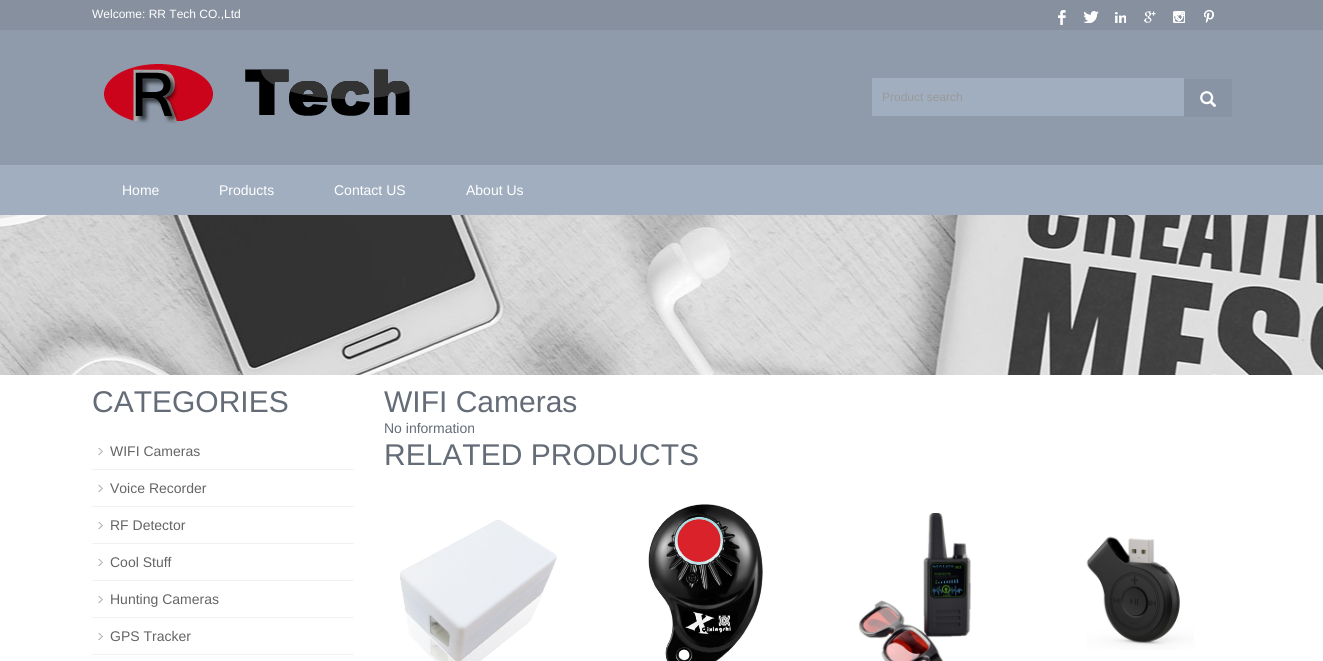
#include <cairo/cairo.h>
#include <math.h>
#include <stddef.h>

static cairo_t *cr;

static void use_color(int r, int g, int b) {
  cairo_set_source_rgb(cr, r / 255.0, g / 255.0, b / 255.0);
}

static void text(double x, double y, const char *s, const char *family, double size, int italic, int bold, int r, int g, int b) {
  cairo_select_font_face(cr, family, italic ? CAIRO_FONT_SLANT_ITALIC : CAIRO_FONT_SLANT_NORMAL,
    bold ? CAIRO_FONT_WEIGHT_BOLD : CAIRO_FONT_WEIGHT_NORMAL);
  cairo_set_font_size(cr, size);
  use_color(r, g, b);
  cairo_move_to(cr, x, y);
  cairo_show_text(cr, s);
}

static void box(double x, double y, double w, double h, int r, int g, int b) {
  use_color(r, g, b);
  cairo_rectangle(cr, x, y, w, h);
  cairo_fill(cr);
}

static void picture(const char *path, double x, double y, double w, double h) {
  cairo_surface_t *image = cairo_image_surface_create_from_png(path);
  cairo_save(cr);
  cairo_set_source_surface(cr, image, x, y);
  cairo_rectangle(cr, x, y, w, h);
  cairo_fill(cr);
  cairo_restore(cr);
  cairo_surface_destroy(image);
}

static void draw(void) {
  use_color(255, 255, 255);
  cairo_paint(cr);
  box(0, 30, 1323, 135, 143, 155, 171);
  box(0, 0, 1323, 30, 134, 144, 158);
  picture("img_01.png", 1058, 10, 8, 15);
  picture("img_02.png", 1083, 11, 16, 12);
  picture("img_03.png", 1115, 12, 11, 11);
  picture("img_04.png", 1144, 11, 12, 12);
  picture("img_05.png", 1173, 11, 12, 12);
  picture("img_06.png", 1204, 10, 10, 13);
  picture("img_07.png", 104, 64, 306, 60);
  box(872, 78, 312, 38, 161, 174, 191);
  box(1184, 79, 48, 38, 136, 148, 164);
  picture("img_08.png", 1200, 91, 17, 16);
  box(0, 165, 1323, 50, 161, 174, 191);
  picture("img_09.png", 0, 215, 1323, 160);
  picture("img_10.png", 98, 448, 5, 7);
  box(92, 469, 262, 1, 242, 242, 242);
  picture("img_10.png", 98, 485, 5, 7);
  box(92, 506, 262, 1, 242, 242, 242);
  picture("img_10.png", 98, 522, 5, 7);
  box(92, 543, 262, 1, 242, 242, 242);
  picture("img_10.png", 98, 559, 5, 7);
  box(92, 580, 262, 1, 242, 242, 242);
  picture("img_10.png", 98, 596, 5, 7);
  box(92, 617, 262, 1, 242, 242, 242);
  picture("img_10.png", 98, 633, 5, 7);
  box(92, 654, 262, 1, 242, 242, 242);
  picture("img_11.png", 399, 520, 158, 141);
  picture("img_12.png", 648, 504, 115, 157);
  picture("img_13.png", 858, 513, 113, 148);
  picture("img_14.png", 1086, 536, 108, 114);
  text(92, 18, "Welcome: RR Tech CO.,Ltd", "Liberation Sans", 12, 0, 0, 255, 255, 255);
  text(882, 101, "Product search", "Liberation Sans", 12, 0, 0, 153, 153, 153);
  text(122, 195, "Home", "Liberation Sans", 14, 0, 0, 255, 255, 255);
  text(219, 195, "Products", "Liberation Sans", 14, 0, 0, 255, 255, 255);
  text(334, 195, "Contact US", "Liberation Sans", 14, 0, 0, 255, 255, 255);
  text(466, 195, "About Us", "Liberation Sans", 14, 0, 0, 255, 255, 255);
  text(92, 412, "CATEGORIES", "Liberation Sans", 30, 0, 0, 100, 108, 119);
  text(110, 456, "WIFI Cameras", "Liberation Sans", 14, 0, 0, 101, 100, 100);
  text(110, 493, "Voice Recorder", "Liberation Sans", 14, 0, 0, 101, 100, 100);
  text(110, 530, "RF Detector", "Liberation Sans", 14, 0, 0, 101, 100, 100);
  text(110, 567, "Cool Stuff", "Liberation Sans", 14, 0, 0, 101, 100, 100);
  text(110, 604, "Hunting Cameras", "Liberation Sans", 14, 0, 0, 101, 100, 100);
  text(110, 641, "GPS Tracker", "Liberation Sans", 14, 0, 0, 101, 100, 100);
  text(384, 412, "WIFI Cameras", "Liberation Sans", 30, 0, 0, 100, 108, 119);
  text(384, 433, "No information", "Liberation Sans", 14, 0, 0, 100, 108, 119);
  text(384, 465, "RELATED PRODUCTS", "Liberation Sans", 30, 0, 0, 100, 108, 119);
}

int main(void) {
  cairo_surface_t *surface = cairo_image_surface_create(CAIRO_FORMAT_RGB24, 1323, 661);
  cr = cairo_create(surface);
  cairo_font_options_t *options = cairo_font_options_create();
  cairo_font_options_set_hint_metrics(options, CAIRO_HINT_METRICS_OFF);
  cairo_font_options_set_hint_style(options, CAIRO_HINT_STYLE_NONE);
  cairo_set_font_options(cr, options);
  cairo_set_miter_limit(cr, 4);
  draw();
  cairo_surface_write_to_png(surface, "out.png");
  cairo_font_options_destroy(options);
  cairo_destroy(cr);
  cairo_surface_destroy(surface);
  return 0;
}
